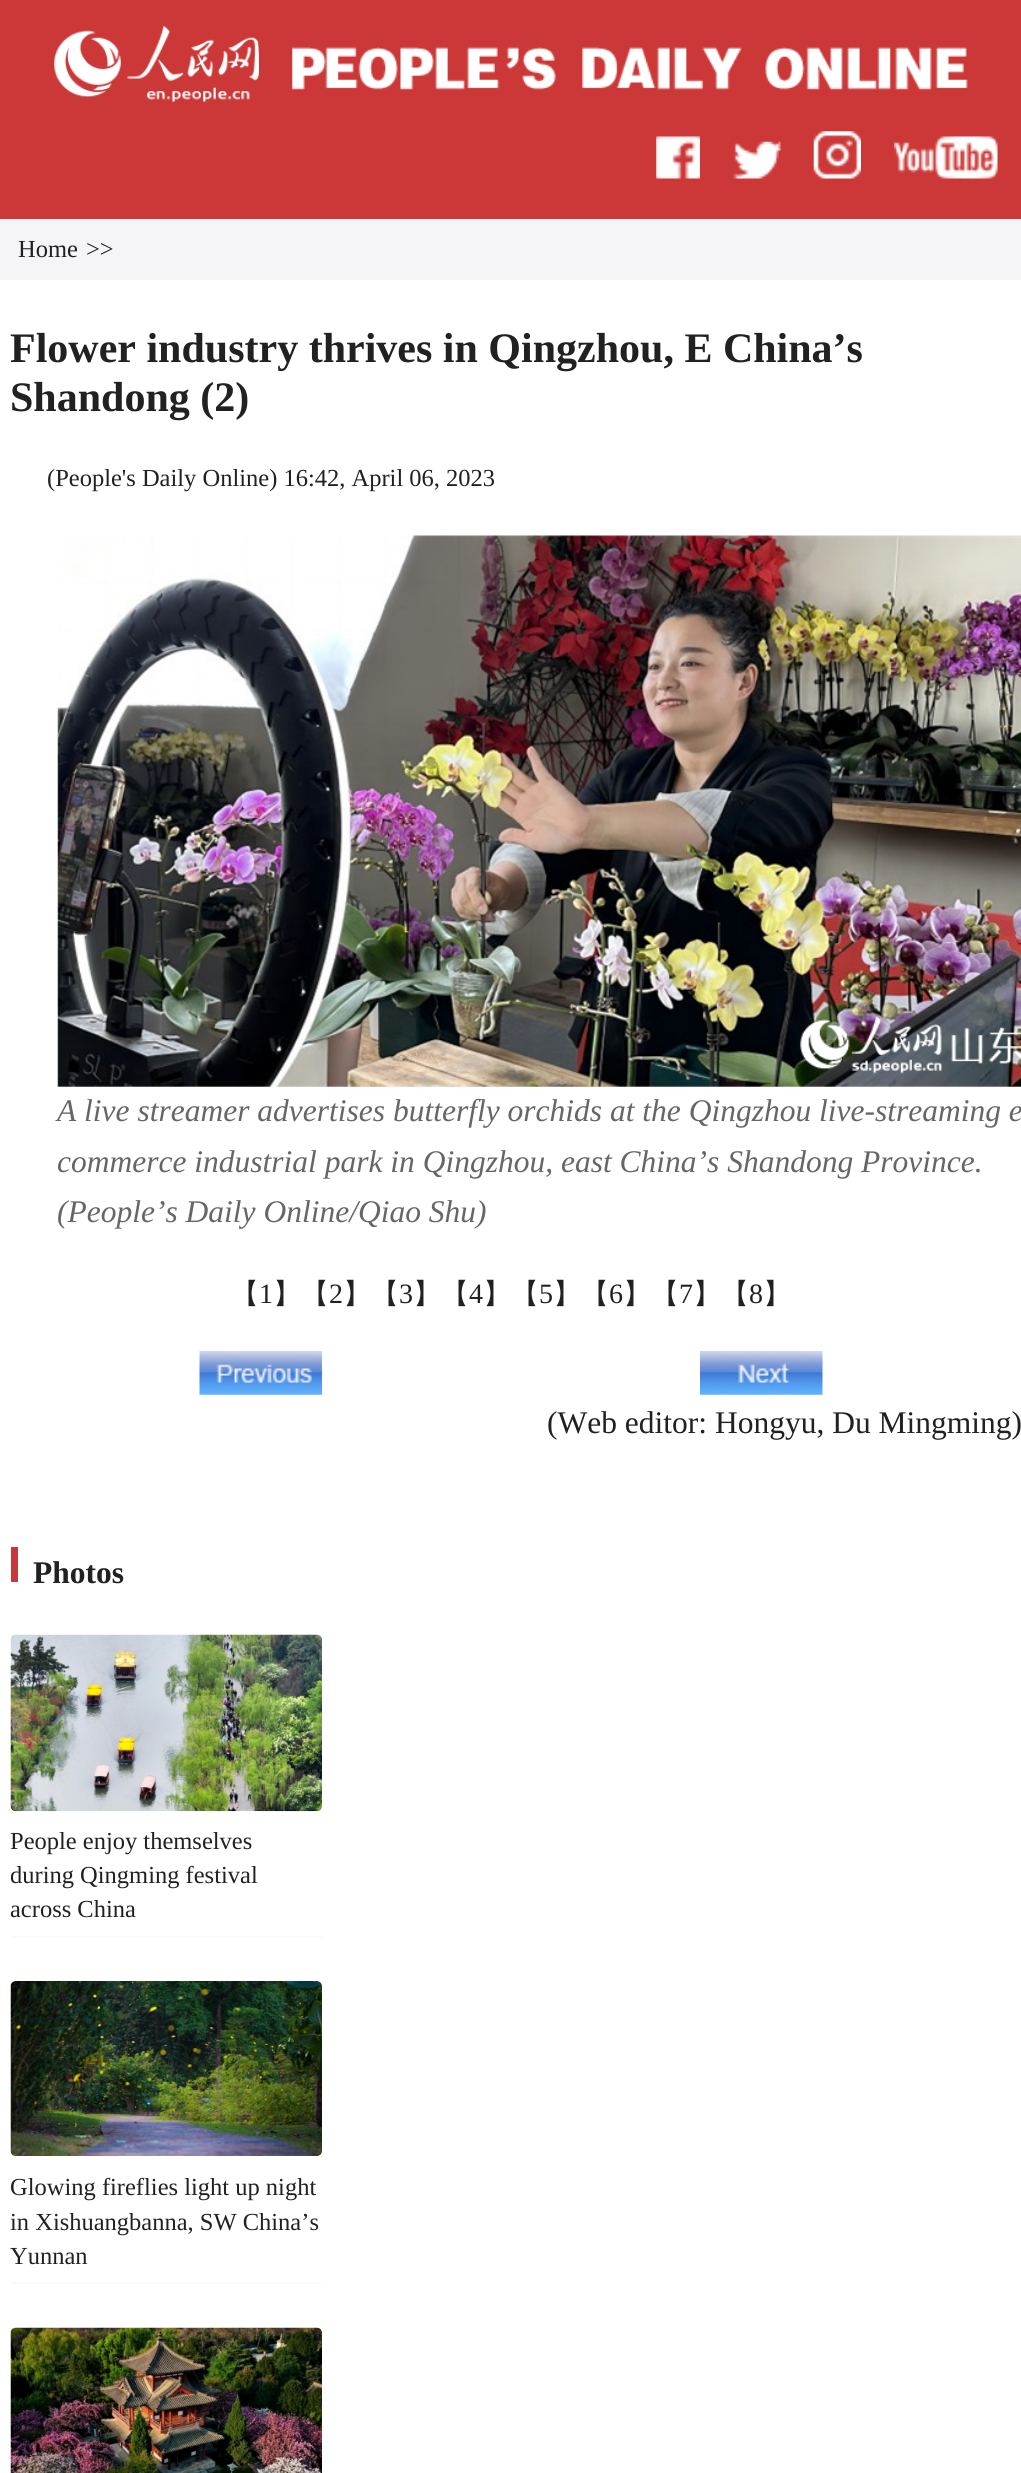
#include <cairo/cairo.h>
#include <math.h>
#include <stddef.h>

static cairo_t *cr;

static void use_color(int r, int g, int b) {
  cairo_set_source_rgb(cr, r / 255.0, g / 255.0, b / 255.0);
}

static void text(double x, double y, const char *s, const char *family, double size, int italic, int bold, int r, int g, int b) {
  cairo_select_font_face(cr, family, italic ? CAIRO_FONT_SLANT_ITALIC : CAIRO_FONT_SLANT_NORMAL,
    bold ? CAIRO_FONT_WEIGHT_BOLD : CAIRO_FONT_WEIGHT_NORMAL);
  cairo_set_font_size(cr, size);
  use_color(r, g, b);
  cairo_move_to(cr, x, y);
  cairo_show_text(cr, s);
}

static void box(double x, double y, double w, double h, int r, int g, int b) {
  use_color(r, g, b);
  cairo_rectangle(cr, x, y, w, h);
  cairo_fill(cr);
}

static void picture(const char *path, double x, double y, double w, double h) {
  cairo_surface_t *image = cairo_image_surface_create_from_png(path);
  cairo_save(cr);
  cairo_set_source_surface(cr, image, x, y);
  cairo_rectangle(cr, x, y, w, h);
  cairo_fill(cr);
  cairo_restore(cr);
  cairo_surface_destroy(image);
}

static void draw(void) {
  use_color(255, 255, 255);
  cairo_paint(cr);
  box(0, 0, 1021, 219, 204, 56, 56);
  picture("img_01.png", 54, 26, 205, 76);
  picture("img_02.png", 292, 47, 676, 43);
  picture("img_03.png", 656, 136, 44, 43);
  picture("img_04.png", 733, 141, 48, 38);
  picture("img_05.png", 813, 131, 48, 48);
  picture("img_06.png", 894, 136, 104, 43);
  box(0, 219, 1021, 61, 245, 245, 247);
  picture("img_07.png", 57, 535, 964, 552);
  picture("img_08.png", 199, 1351, 123, 44);
  picture("img_09.png", 700, 1351, 123, 44);
  box(11, 1547, 7, 35, 196, 58, 58);
  box(11, 1936, 311, 2, 251, 251, 251);
  picture("img_10.png", 10, 1634, 312, 178);
  box(11, 2282, 311, 2, 251, 251, 251);
  picture("img_11.png", 10, 1981, 312, 175);
  picture("img_12.png", 10, 2327, 312, 146);
  text(18, 257, "Home", "Liberation Serif", 24.5, 0, 0, 33, 33, 33);
  text(86, 257, ">>", "Liberation Serif", 24.5, 0, 0, 33, 33, 33);
  text(10, 362, "Flower industry thrives in Qingzhou, E China’s", "Liberation Serif", 42, 0, 1, 33, 33, 33);
  text(10, 411, "Shandong (2)", "Liberation Serif", 42, 0, 1, 33, 33, 33);
  text(47, 486, "(People's Daily Online) 16:42, April 06, 2023", "Liberation Serif", 24.5, 0, 0, 33, 33, 33);
  text(57, 1121, "A live streamer advertises butterfly orchids at the Qingzhou live-streaming e", "Liberation Serif", 31.5, 1, 0, 102, 102, 102);
  text(57, 1172, "commerce industrial park in Qingzhou, east China’s Shandong Province.", "Liberation Serif", 31.5, 1, 0, 102, 102, 102);
  text(57, 1222, "(People’s Daily Online/Qiao Shu)", "Liberation Serif", 31.5, 1, 0, 102, 102, 102);
  text(231, 1303, "【", "WenQuanYi Zen Hei Medium", 28, 0, 0, 33, 33, 33);
  text(259, 1303, "1", "Liberation Serif", 28, 0, 0, 33, 33, 33);
  text(273, 1303, "】【", "WenQuanYi Zen Hei Medium", 28, 0, 0, 33, 33, 33);
  text(329, 1303, "2", "Liberation Serif", 28, 0, 0, 33, 33, 33);
  text(343, 1303, "】【", "WenQuanYi Zen Hei Medium", 28, 0, 0, 33, 33, 33);
  text(399, 1303, "3", "Liberation Serif", 28, 0, 0, 33, 33, 33);
  text(413, 1303, "】【", "WenQuanYi Zen Hei Medium", 28, 0, 0, 33, 33, 33);
  text(469, 1303, "4", "Liberation Serif", 28, 0, 0, 33, 33, 33);
  text(483, 1303, "】【", "WenQuanYi Zen Hei Medium", 28, 0, 0, 33, 33, 33);
  text(539, 1303, "5", "Liberation Serif", 28, 0, 0, 33, 33, 33);
  text(553, 1303, "】【", "WenQuanYi Zen Hei Medium", 28, 0, 0, 33, 33, 33);
  text(609, 1303, "6", "Liberation Serif", 28, 0, 0, 33, 33, 33);
  text(623, 1303, "】【", "WenQuanYi Zen Hei Medium", 28, 0, 0, 33, 33, 33);
  text(679, 1303, "7", "Liberation Serif", 28, 0, 0, 33, 33, 33);
  text(693, 1303, "】【", "WenQuanYi Zen Hei Medium", 28, 0, 0, 33, 33, 33);
  text(749, 1303, "8", "Liberation Serif", 28, 0, 0, 33, 33, 33);
  text(763, 1303, "】", "WenQuanYi Zen Hei Medium", 28, 0, 0, 33, 33, 33);
  text(547, 1433, "(Web editor: Hongyu, Du Mingming)", "Liberation Serif", 31.5, 0, 0, 33, 33, 33);
  text(33, 1583, "Photos", "Liberation Serif", 31.5, 0, 1, 33, 33, 33);
  text(10, 1849, "People enjoy themselves", "Liberation Serif", 24.5, 0, 0, 33, 33, 33);
  text(10, 1883, "during Qingming festival", "Liberation Serif", 24.5, 0, 0, 33, 33, 33);
  text(10, 1917, "across China", "Liberation Serif", 24.5, 0, 0, 33, 33, 33);
  text(10, 2195, "Glowing fireflies light up night", "Liberation Serif", 24.5, 0, 0, 33, 33, 33);
  text(10, 2230, "in Xishuangbanna, SW China’s", "Liberation Serif", 24.5, 0, 0, 33, 33, 33);
  text(10, 2264, "Yunnan", "Liberation Serif", 24.5, 0, 0, 33, 33, 33);
}

int main(void) {
  cairo_surface_t *surface = cairo_image_surface_create(CAIRO_FORMAT_RGB24, 1021, 2473);
  cr = cairo_create(surface);
  cairo_font_options_t *options = cairo_font_options_create();
  cairo_font_options_set_hint_metrics(options, CAIRO_HINT_METRICS_OFF);
  cairo_font_options_set_hint_style(options, CAIRO_HINT_STYLE_NONE);
  cairo_set_font_options(cr, options);
  cairo_set_miter_limit(cr, 4);
  draw();
  cairo_surface_write_to_png(surface, "out.png");
  cairo_font_options_destroy(options);
  cairo_destroy(cr);
  cairo_surface_destroy(surface);
  return 0;
}
